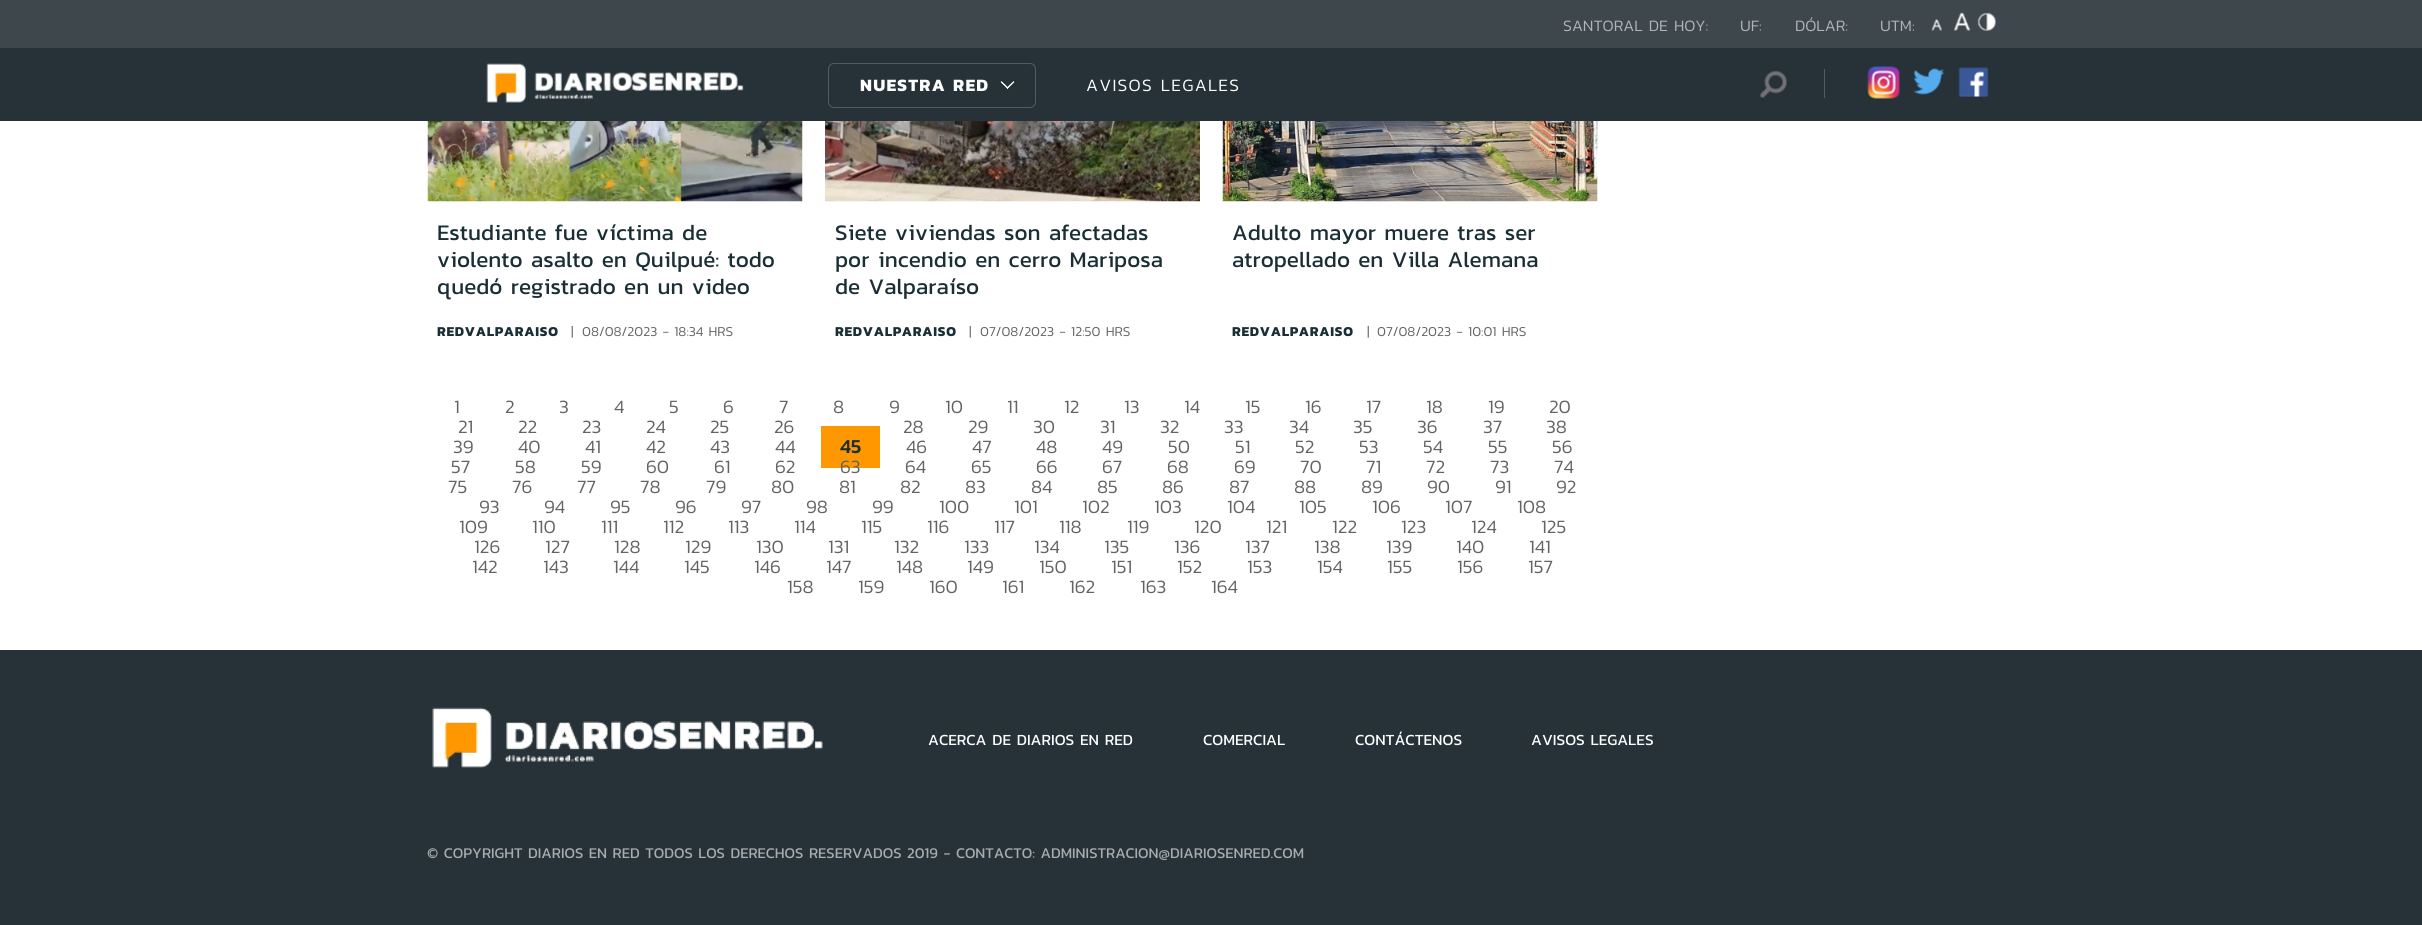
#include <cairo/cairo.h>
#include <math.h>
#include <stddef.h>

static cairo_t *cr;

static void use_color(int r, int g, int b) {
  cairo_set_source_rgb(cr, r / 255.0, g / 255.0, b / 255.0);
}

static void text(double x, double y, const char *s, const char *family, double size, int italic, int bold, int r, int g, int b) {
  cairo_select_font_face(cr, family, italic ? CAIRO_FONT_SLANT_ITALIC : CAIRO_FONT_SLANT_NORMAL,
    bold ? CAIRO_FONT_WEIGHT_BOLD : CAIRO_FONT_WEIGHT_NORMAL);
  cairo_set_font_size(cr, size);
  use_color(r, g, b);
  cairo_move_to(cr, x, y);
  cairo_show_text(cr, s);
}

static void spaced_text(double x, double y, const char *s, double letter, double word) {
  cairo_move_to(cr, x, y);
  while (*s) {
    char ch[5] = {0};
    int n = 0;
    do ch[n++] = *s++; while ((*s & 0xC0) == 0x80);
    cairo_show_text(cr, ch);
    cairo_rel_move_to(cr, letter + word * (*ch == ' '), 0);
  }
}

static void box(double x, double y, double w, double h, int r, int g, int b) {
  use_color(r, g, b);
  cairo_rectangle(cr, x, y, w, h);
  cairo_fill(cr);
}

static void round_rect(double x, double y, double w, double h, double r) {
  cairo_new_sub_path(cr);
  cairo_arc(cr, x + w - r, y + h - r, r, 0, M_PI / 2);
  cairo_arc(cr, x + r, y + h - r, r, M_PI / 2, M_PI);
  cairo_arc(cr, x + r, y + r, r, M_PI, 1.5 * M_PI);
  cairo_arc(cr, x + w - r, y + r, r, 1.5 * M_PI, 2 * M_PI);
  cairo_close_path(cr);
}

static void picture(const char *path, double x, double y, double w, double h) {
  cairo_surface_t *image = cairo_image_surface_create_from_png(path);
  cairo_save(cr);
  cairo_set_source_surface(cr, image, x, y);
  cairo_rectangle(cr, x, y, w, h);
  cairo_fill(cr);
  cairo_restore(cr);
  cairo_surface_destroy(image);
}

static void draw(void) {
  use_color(255, 255, 255);
  cairo_paint(cr);
  box(0, 48, 2422, 73, 38, 50, 56);
  box(0, 0, 2422, 48, 62, 71, 76);
  picture("img_01.png", 1931, 19, 11, 12);
  picture("img_02.png", 1953, 12, 18, 19);
  picture("img_03.png", 1977, 12, 19, 19);
  picture("img_04.png", 486, 63, 258, 40);
  picture("img_05.png", 1000, 81, 15, 8);
  round_rect(828.5, 63.5, 207, 44, 5.5);
  use_color(83, 91, 96);
  cairo_set_line_width(cr, 1);
  cairo_stroke(cr);
  picture("img_06.png", 1760, 70, 27, 28);
  box(1824, 69, 1, 29, 83, 91, 96);
  picture("img_07.png", 1867, 66, 33, 33);
  picture("img_08.png", 1913, 68, 32, 27);
  picture("img_09.png", 1958, 67, 31, 30);
  picture("img_10.png", 427, 121, 376, 81);
  picture("img_11.png", 825, 121, 375, 81);
  picture("img_12.png", 1222, 121, 376, 81);
  box(821, 426, 59, 42, 255, 152, 0);
  box(0, 650, 2422, 275, 38, 50, 56);
  picture("img_13.png", 432, 707, 391, 61);
  text(1563, 31, "SANTORAL DE HOY:", "Kanit Light", 16, 0, 0, 178, 181, 183);
  text(1740, 31, "UF:", "Kanit Light", 16, 0, 0, 178, 181, 183);
  text(1795, 31, "DÓLAR:", "Kanit Light", 16, 0, 0, 178, 181, 183);
  text(1880, 31, "UTM:", "Kanit Light", 16, 0, 0, 178, 181, 183);
  cairo_select_font_face(cr, "Kanit", CAIRO_FONT_SLANT_NORMAL, CAIRO_FONT_WEIGHT_BOLD);
  cairo_set_font_size(cr, 17.5);
  use_color(255, 255, 255);
  spaced_text(860, 91, "NUESTRA RED", 1.25, 0);
  cairo_select_font_face(cr, "Kanit Light", CAIRO_FONT_SLANT_NORMAL, CAIRO_FONT_WEIGHT_NORMAL);
  spaced_text(1086, 91, "AVISOS LEGALES", 1.25, 0);
  text(437, 240, "Estudiante fue víctima de", "Kanit", 22.5, 0, 0, 26, 46, 53);
  text(437, 267, "violento asalto en Quilpué: todo", "Kanit", 22.5, 0, 0, 26, 46, 53);
  text(437, 294, "quedó registrado en un video", "Kanit", 22.5, 0, 0, 26, 46, 53);
  cairo_select_font_face(cr, "Kanit", CAIRO_FONT_SLANT_NORMAL, CAIRO_FONT_WEIGHT_BOLD);
  cairo_set_font_size(cr, 13.75);
  spaced_text(437, 336, "REDVALPARAISO", 0.75, 0);
  cairo_select_font_face(cr, "Kanit Light", CAIRO_FONT_SLANT_NORMAL, CAIRO_FONT_WEIGHT_NORMAL);
  use_color(99, 99, 99);
  spaced_text(571, 336, "|", 0.75, 0);
  text(582, 336, "08/08/2023 - 18:34 HRS", "Kanit Light", 13.75, 0, 0, 99, 99, 99);
  text(835, 240, "Siete viviendas son afectadas", "Kanit", 22.5, 0, 0, 26, 46, 53);
  text(835, 267, "por incendio en cerro Mariposa", "Kanit", 22.5, 0, 0, 26, 46, 53);
  text(835, 294, "de Valparaíso", "Kanit", 22.5, 0, 0, 26, 46, 53);
  cairo_select_font_face(cr, "Kanit", CAIRO_FONT_SLANT_NORMAL, CAIRO_FONT_WEIGHT_BOLD);
  cairo_set_font_size(cr, 13.75);
  spaced_text(835, 336, "REDVALPARAISO", 0.75, 0);
  cairo_select_font_face(cr, "Kanit Light", CAIRO_FONT_SLANT_NORMAL, CAIRO_FONT_WEIGHT_NORMAL);
  use_color(99, 99, 99);
  spaced_text(969, 336, "|", 0.75, 0);
  text(980, 336, "07/08/2023 - 12:50 HRS", "Kanit Light", 13.75, 0, 0, 99, 99, 99);
  text(1232, 240, "Adulto mayor muere tras ser", "Kanit", 22.5, 0, 0, 26, 46, 53);
  text(1232, 267, "atropellado en Villa Alemana", "Kanit", 22.5, 0, 0, 26, 46, 53);
  cairo_select_font_face(cr, "Kanit", CAIRO_FONT_SLANT_NORMAL, CAIRO_FONT_WEIGHT_BOLD);
  cairo_set_font_size(cr, 13.75);
  spaced_text(1232, 336, "REDVALPARAISO", 0.75, 0);
  cairo_select_font_face(cr, "Kanit Light", CAIRO_FONT_SLANT_NORMAL, CAIRO_FONT_WEIGHT_NORMAL);
  use_color(99, 99, 99);
  spaced_text(1367, 336, "|", 0.75, 0);
  text(1377, 336, "07/08/2023 - 10:01 HRS", "Kanit Light", 13.75, 0, 0, 99, 99, 99);
  text(454, 413, "1", "Kanit Light", 19, 0, 0, 99, 99, 99);
  text(505, 413, "2", "Kanit Light", 19, 0, 0, 99, 99, 99);
  text(559, 413, "3", "Kanit Light", 19, 0, 0, 99, 99, 99);
  text(614, 413, "4", "Kanit Light", 19, 0, 0, 99, 99, 99);
  text(669, 413, "5", "Kanit Light", 19, 0, 0, 99, 99, 99);
  text(723, 413, "6", "Kanit Light", 19, 0, 0, 99, 99, 99);
  text(779, 413, "7", "Kanit Light", 19, 0, 0, 99, 99, 99);
  text(833, 413, "8", "Kanit Light", 19, 0, 0, 99, 99, 99);
  text(889, 413, "9", "Kanit Light", 19, 0, 0, 99, 99, 99);
  text(945, 413, "10", "Kanit Light", 19, 0, 0, 99, 99, 99);
  text(1007, 413, "11", "Kanit Light", 19, 0, 0, 99, 99, 99);
  text(1064, 413, "12", "Kanit Light", 19, 0, 0, 99, 99, 99);
  text(1124, 413, "13", "Kanit Light", 19, 0, 0, 99, 99, 99);
  text(1184, 413, "14", "Kanit Light", 19, 0, 0, 99, 99, 99);
  text(1245, 413, "15", "Kanit Light", 19, 0, 0, 99, 99, 99);
  text(1305, 413, "16", "Kanit Light", 19, 0, 0, 99, 99, 99);
  text(1366, 413, "17", "Kanit Light", 19, 0, 0, 99, 99, 99);
  text(1426, 413, "18", "Kanit Light", 19, 0, 0, 99, 99, 99);
  text(1488, 413, "19", "Kanit Light", 19, 0, 0, 99, 99, 99);
  text(1549, 413, "20", "Kanit Light", 19, 0, 0, 99, 99, 99);
  text(458, 433, "21", "Kanit Light", 19, 0, 0, 99, 99, 99);
  text(518, 433, "22", "Kanit Light", 19, 0, 0, 99, 99, 99);
  text(582, 433, "23", "Kanit Light", 19, 0, 0, 99, 99, 99);
  text(646, 433, "24", "Kanit Light", 19, 0, 0, 99, 99, 99);
  text(710, 433, "25", "Kanit Light", 19, 0, 0, 99, 99, 99);
  text(774, 433, "26", "Kanit Light", 19, 0, 0, 99, 99, 99);
  text(903, 433, "28", "Kanit Light", 19, 0, 0, 99, 99, 99);
  text(968, 433, "29", "Kanit Light", 19, 0, 0, 99, 99, 99);
  text(1033, 433, "30", "Kanit Light", 19, 0, 0, 99, 99, 99);
  text(1100, 433, "31", "Kanit Light", 19, 0, 0, 99, 99, 99);
  text(1160, 433, "32", "Kanit Light", 19, 0, 0, 99, 99, 99);
  text(1224, 433, "33", "Kanit Light", 19, 0, 0, 99, 99, 99);
  text(1289, 433, "34", "Kanit Light", 19, 0, 0, 99, 99, 99);
  text(1353, 433, "35", "Kanit Light", 19, 0, 0, 99, 99, 99);
  text(1417, 433, "36", "Kanit Light", 19, 0, 0, 99, 99, 99);
  text(1483, 433, "37", "Kanit Light", 19, 0, 0, 99, 99, 99);
  text(1546, 433, "38", "Kanit Light", 19, 0, 0, 99, 99, 99);
  text(453, 453, "39", "Kanit Light", 19, 0, 0, 99, 99, 99);
  text(518, 453, "40", "Kanit Light", 19, 0, 0, 99, 99, 99);
  text(585, 453, "41", "Kanit Light", 19, 0, 0, 99, 99, 99);
  text(646, 453, "42", "Kanit Light", 19, 0, 0, 99, 99, 99);
  text(710, 453, "43", "Kanit Light", 19, 0, 0, 99, 99, 99);
  text(775, 453, "44", "Kanit Light", 19, 0, 0, 99, 99, 99);
  text(840, 453, "45", "Kanit Medium", 20, 0, 0, 26, 46, 53);
  text(906, 453, "46", "Kanit Light", 19, 0, 0, 99, 99, 99);
  text(972, 453, "47", "Kanit Light", 19, 0, 0, 99, 99, 99);
  text(1036, 453, "48", "Kanit Light", 19, 0, 0, 99, 99, 99);
  text(1102, 453, "49", "Kanit Light", 19, 0, 0, 99, 99, 99);
  text(1168, 453, "50", "Kanit Light", 19, 0, 0, 99, 99, 99);
  text(1235, 453, "51", "Kanit Light", 19, 0, 0, 99, 99, 99);
  text(1295, 453, "52", "Kanit Light", 19, 0, 0, 99, 99, 99);
  text(1359, 453, "53", "Kanit Light", 19, 0, 0, 99, 99, 99);
  text(1423, 453, "54", "Kanit Light", 19, 0, 0, 99, 99, 99);
  text(1488, 453, "55", "Kanit Light", 19, 0, 0, 99, 99, 99);
  text(1552, 453, "56", "Kanit Light", 19, 0, 0, 99, 99, 99);
  text(451, 473, "57", "Kanit Light", 19, 0, 0, 99, 99, 99);
  text(515, 473, "58", "Kanit Light", 19, 0, 0, 99, 99, 99);
  text(581, 473, "59", "Kanit Light", 19, 0, 0, 99, 99, 99);
  text(646, 473, "60", "Kanit Light", 19, 0, 0, 99, 99, 99);
  text(714, 473, "61", "Kanit Light", 19, 0, 0, 99, 99, 99);
  text(775, 473, "62", "Kanit Light", 19, 0, 0, 99, 99, 99);
  text(840, 473, "63", "Kanit Light", 19, 0, 0, 99, 99, 99);
  text(905, 473, "64", "Kanit Light", 19, 0, 0, 99, 99, 99);
  text(971, 473, "65", "Kanit Light", 19, 0, 0, 99, 99, 99);
  text(1036, 473, "66", "Kanit Light", 19, 0, 0, 99, 99, 99);
  text(1102, 473, "67", "Kanit Light", 19, 0, 0, 99, 99, 99);
  text(1167, 473, "68", "Kanit Light", 19, 0, 0, 99, 99, 99);
  text(1234, 473, "69", "Kanit Light", 19, 0, 0, 99, 99, 99);
  text(1300, 473, "70", "Kanit Light", 19, 0, 0, 99, 99, 99);
  text(1366, 473, "71", "Kanit Light", 19, 0, 0, 99, 99, 99);
  text(1426, 473, "72", "Kanit Light", 19, 0, 0, 99, 99, 99);
  text(1490, 473, "73", "Kanit Light", 19, 0, 0, 99, 99, 99);
  text(1554, 473, "74", "Kanit Light", 19, 0, 0, 99, 99, 99);
  text(448, 493, "75", "Kanit Light", 19, 0, 0, 99, 99, 99);
  text(512, 493, "76", "Kanit Light", 19, 0, 0, 99, 99, 99);
  text(577, 493, "77", "Kanit Light", 19, 0, 0, 99, 99, 99);
  text(640, 493, "78", "Kanit Light", 19, 0, 0, 99, 99, 99);
  text(706, 493, "79", "Kanit Light", 19, 0, 0, 99, 99, 99);
  text(771, 493, "80", "Kanit Light", 19, 0, 0, 99, 99, 99);
  text(839, 493, "81", "Kanit Light", 19, 0, 0, 99, 99, 99);
  text(900, 493, "82", "Kanit Light", 19, 0, 0, 99, 99, 99);
  text(965, 493, "83", "Kanit Light", 19, 0, 0, 99, 99, 99);
  text(1031, 493, "84", "Kanit Light", 19, 0, 0, 99, 99, 99);
  text(1097, 493, "85", "Kanit Light", 19, 0, 0, 99, 99, 99);
  text(1162, 493, "86", "Kanit Light", 19, 0, 0, 99, 99, 99);
  text(1229, 493, "87", "Kanit Light", 19, 0, 0, 99, 99, 99);
  text(1294, 493, "88", "Kanit Light", 19, 0, 0, 99, 99, 99);
  text(1361, 493, "89", "Kanit Light", 19, 0, 0, 99, 99, 99);
  text(1427, 493, "90", "Kanit Light", 19, 0, 0, 99, 99, 99);
  text(1495, 493, "91", "Kanit Light", 19, 0, 0, 99, 99, 99);
  text(1556, 493, "92", "Kanit Light", 19, 0, 0, 99, 99, 99);
  text(479, 513, "93", "Kanit Light", 19, 0, 0, 99, 99, 99);
  text(544, 513, "94", "Kanit Light", 19, 0, 0, 99, 99, 99);
  text(610, 513, "95", "Kanit Light", 19, 0, 0, 99, 99, 99);
  text(675, 513, "96", "Kanit Light", 19, 0, 0, 99, 99, 99);
  text(741, 513, "97", "Kanit Light", 19, 0, 0, 99, 99, 99);
  text(806, 513, "98", "Kanit Light", 19, 0, 0, 99, 99, 99);
  text(872, 513, "99", "Kanit Light", 19, 0, 0, 99, 99, 99);
  text(939, 513, "100", "Kanit Light", 19, 0, 0, 99, 99, 99);
  text(1014, 513, "101", "Kanit Light", 19, 0, 0, 99, 99, 99);
  text(1082, 513, "102", "Kanit Light", 19, 0, 0, 99, 99, 99);
  text(1154, 513, "103", "Kanit Light", 19, 0, 0, 99, 99, 99);
  text(1227, 513, "104", "Kanit Light", 19, 0, 0, 99, 99, 99);
  text(1299, 513, "105", "Kanit Light", 19, 0, 0, 99, 99, 99);
  text(1372, 513, "106", "Kanit Light", 19, 0, 0, 99, 99, 99);
  text(1445, 513, "107", "Kanit Light", 19, 0, 0, 99, 99, 99);
  text(1517, 513, "108", "Kanit Light", 19, 0, 0, 99, 99, 99);
  text(459, 533, "109", "Kanit Light", 19, 0, 0, 99, 99, 99);
  text(532, 533, "110", "Kanit Light", 19, 0, 0, 99, 99, 99);
  text(601, 533, "111", "Kanit Light", 19, 0, 0, 99, 99, 99);
  text(663, 533, "112", "Kanit Light", 19, 0, 0, 99, 99, 99);
  text(728, 533, "113", "Kanit Light", 19, 0, 0, 99, 99, 99);
  text(794, 533, "114", "Kanit Light", 19, 0, 0, 99, 99, 99);
  text(861, 533, "115", "Kanit Light", 19, 0, 0, 99, 99, 99);
  text(927, 533, "116", "Kanit Light", 19, 0, 0, 99, 99, 99);
  text(994, 533, "117", "Kanit Light", 19, 0, 0, 99, 99, 99);
  text(1059, 533, "118", "Kanit Light", 19, 0, 0, 99, 99, 99);
  text(1127, 533, "119", "Kanit Light", 19, 0, 0, 99, 99, 99);
  text(1194, 533, "120", "Kanit Light", 19, 0, 0, 99, 99, 99);
  text(1266, 533, "121", "Kanit Light", 19, 0, 0, 99, 99, 99);
  text(1332, 533, "122", "Kanit Light", 19, 0, 0, 99, 99, 99);
  text(1401, 533, "123", "Kanit Light", 19, 0, 0, 99, 99, 99);
  text(1471, 533, "124", "Kanit Light", 19, 0, 0, 99, 99, 99);
  text(1541, 533, "125", "Kanit Light", 19, 0, 0, 99, 99, 99);
  text(474, 553, "126", "Kanit Light", 19, 0, 0, 99, 99, 99);
  text(545, 553, "127", "Kanit Light", 19, 0, 0, 99, 99, 99);
  text(614, 553, "128", "Kanit Light", 19, 0, 0, 99, 99, 99);
  text(685, 553, "129", "Kanit Light", 19, 0, 0, 99, 99, 99);
  text(756, 553, "130", "Kanit Light", 19, 0, 0, 99, 99, 99);
  text(828, 553, "131", "Kanit Light", 19, 0, 0, 99, 99, 99);
  text(894, 553, "132", "Kanit Light", 19, 0, 0, 99, 99, 99);
  text(964, 553, "133", "Kanit Light", 19, 0, 0, 99, 99, 99);
  text(1034, 553, "134", "Kanit Light", 19, 0, 0, 99, 99, 99);
  text(1104, 553, "135", "Kanit Light", 19, 0, 0, 99, 99, 99);
  text(1174, 553, "136", "Kanit Light", 19, 0, 0, 99, 99, 99);
  text(1245, 553, "137", "Kanit Light", 19, 0, 0, 99, 99, 99);
  text(1314, 553, "138", "Kanit Light", 19, 0, 0, 99, 99, 99);
  text(1386, 553, "139", "Kanit Light", 19, 0, 0, 99, 99, 99);
  text(1456, 553, "140", "Kanit Light", 19, 0, 0, 99, 99, 99);
  text(1529, 553, "141", "Kanit Light", 19, 0, 0, 99, 99, 99);
  text(472, 573, "142", "Kanit Light", 19, 0, 0, 99, 99, 99);
  text(543, 573, "143", "Kanit Light", 19, 0, 0, 99, 99, 99);
  text(613, 573, "144", "Kanit Light", 19, 0, 0, 99, 99, 99);
  text(684, 573, "145", "Kanit Light", 19, 0, 0, 99, 99, 99);
  text(754, 573, "146", "Kanit Light", 19, 0, 0, 99, 99, 99);
  text(826, 573, "147", "Kanit Light", 19, 0, 0, 99, 99, 99);
  text(896, 573, "148", "Kanit Light", 19, 0, 0, 99, 99, 99);
  text(967, 573, "149", "Kanit Light", 19, 0, 0, 99, 99, 99);
  text(1039, 573, "150", "Kanit Light", 19, 0, 0, 99, 99, 99);
  text(1111, 573, "151", "Kanit Light", 19, 0, 0, 99, 99, 99);
  text(1177, 573, "152", "Kanit Light", 19, 0, 0, 99, 99, 99);
  text(1247, 573, "153", "Kanit Light", 19, 0, 0, 99, 99, 99);
  text(1317, 573, "154", "Kanit Light", 19, 0, 0, 99, 99, 99);
  text(1387, 573, "155", "Kanit Light", 19, 0, 0, 99, 99, 99);
  text(1457, 573, "156", "Kanit Light", 19, 0, 0, 99, 99, 99);
  text(1528, 573, "157", "Kanit Light", 19, 0, 0, 99, 99, 99);
  text(787, 593, "158", "Kanit Light", 19, 0, 0, 99, 99, 99);
  text(858, 593, "159", "Kanit Light", 19, 0, 0, 99, 99, 99);
  text(929, 593, "160", "Kanit Light", 19, 0, 0, 99, 99, 99);
  text(1002, 593, "161", "Kanit Light", 19, 0, 0, 99, 99, 99);
  text(1069, 593, "162", "Kanit Light", 19, 0, 0, 99, 99, 99);
  text(1140, 593, "163", "Kanit Light", 19, 0, 0, 99, 99, 99);
  text(1211, 593, "164", "Kanit Light", 19, 0, 0, 99, 99, 99);
  text(928, 745, "ACERCA DE DIARIOS EN RED", "Kanit", 15.6, 0, 0, 255, 255, 255);
  text(1203, 745, "COMERCIAL", "Kanit", 15.6, 0, 0, 255, 255, 255);
  text(1355, 745, "CONTÁCTENOS", "Kanit", 15.6, 0, 0, 255, 255, 255);
  text(1531, 745, "AVISOS LEGALES", "Kanit", 15.6, 0, 0, 255, 255, 255);
  text(427, 858, "© COPYRIGHT DIARIOS EN RED TODOS LOS DERECHOS RESERVADOS 2019 - CONTACTO: ADMINISTRACION@DIARIOSENRED.COM", "Kanit", 15, 0, 0, 169, 173, 175);
}

int main(void) {
  cairo_surface_t *surface = cairo_image_surface_create(CAIRO_FORMAT_RGB24, 2422, 925);
  cr = cairo_create(surface);
  cairo_font_options_t *options = cairo_font_options_create();
  cairo_font_options_set_hint_metrics(options, CAIRO_HINT_METRICS_OFF);
  cairo_font_options_set_hint_style(options, CAIRO_HINT_STYLE_NONE);
  cairo_set_font_options(cr, options);
  cairo_set_miter_limit(cr, 4);
  draw();
  cairo_surface_write_to_png(surface, "out.png");
  cairo_font_options_destroy(options);
  cairo_destroy(cr);
  cairo_surface_destroy(surface);
  return 0;
}
